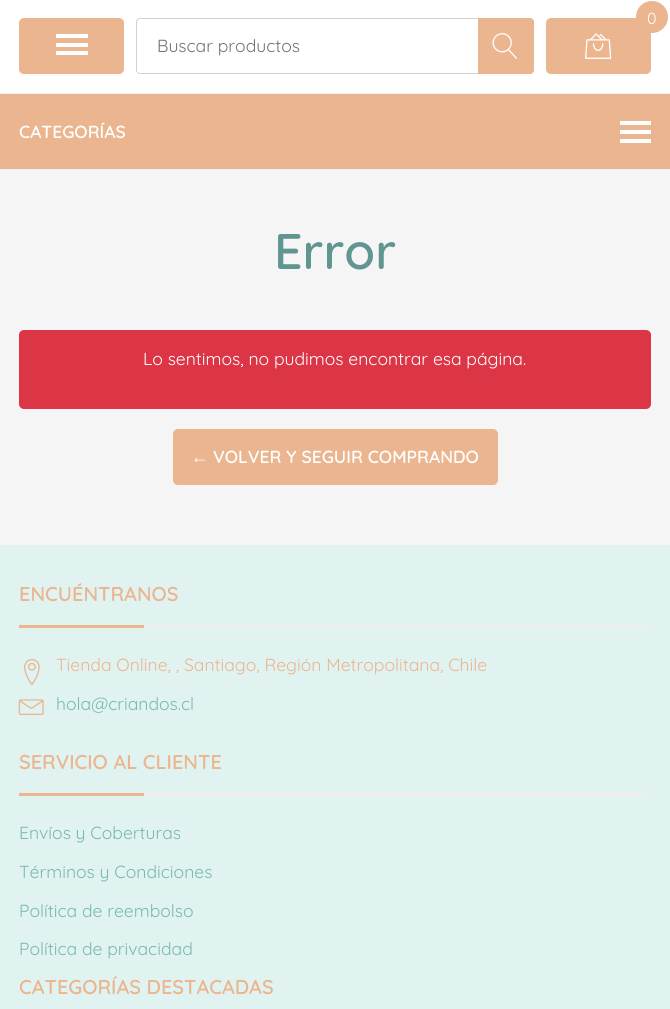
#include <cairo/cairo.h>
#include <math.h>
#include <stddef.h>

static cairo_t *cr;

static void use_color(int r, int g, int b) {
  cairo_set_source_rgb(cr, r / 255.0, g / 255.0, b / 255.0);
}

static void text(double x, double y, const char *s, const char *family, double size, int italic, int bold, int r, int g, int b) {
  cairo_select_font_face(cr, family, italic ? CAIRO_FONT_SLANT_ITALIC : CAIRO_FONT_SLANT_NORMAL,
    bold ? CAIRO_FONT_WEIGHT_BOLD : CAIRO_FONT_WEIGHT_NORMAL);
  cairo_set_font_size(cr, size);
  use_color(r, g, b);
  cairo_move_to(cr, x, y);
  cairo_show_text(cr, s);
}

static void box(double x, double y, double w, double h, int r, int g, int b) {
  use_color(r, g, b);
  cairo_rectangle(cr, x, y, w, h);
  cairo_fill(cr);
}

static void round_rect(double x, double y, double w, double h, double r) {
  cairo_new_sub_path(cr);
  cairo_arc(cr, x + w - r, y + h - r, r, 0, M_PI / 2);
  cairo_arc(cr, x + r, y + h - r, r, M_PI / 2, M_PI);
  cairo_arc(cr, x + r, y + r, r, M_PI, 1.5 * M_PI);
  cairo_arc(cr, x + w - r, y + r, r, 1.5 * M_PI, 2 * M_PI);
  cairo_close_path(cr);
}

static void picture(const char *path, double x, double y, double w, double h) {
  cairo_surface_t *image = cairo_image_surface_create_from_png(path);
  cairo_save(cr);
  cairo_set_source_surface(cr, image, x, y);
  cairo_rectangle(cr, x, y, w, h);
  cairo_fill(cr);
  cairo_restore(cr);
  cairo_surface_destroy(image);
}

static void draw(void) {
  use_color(225, 243, 240);
  cairo_paint(cr);
  box(0, 0, 670, 93, 255, 255, 255);
  use_color(234, 181, 143);
  round_rect(19, 18, 105, 56, 5);
  cairo_fill(cr);
  box(56, 34, 32, 4, 255, 255, 255);
  box(56, 43, 32, 4, 255, 255, 255);
  box(56, 51, 32, 4, 255, 255, 255);
  round_rect(136.5, 18.5, 397, 55, 3.5);
  use_color(209, 209, 209);
  cairo_set_line_width(cr, 1);
  cairo_stroke(cr);
  use_color(234, 181, 143);
  cairo_new_path(cr);
  cairo_move_to(cr, 478, 18);
  cairo_line_to(cr, 530, 18);
  cairo_curve_to(cr, 532, 18, 534, 20, 534, 22);
  cairo_line_to(cr, 534, 70);
  cairo_curve_to(cr, 534, 72, 532, 74, 530, 74);
  cairo_line_to(cr, 478, 74);
  cairo_close_path(cr);
  cairo_fill(cr);
  picture("img_01.png", 492, 33, 25, 26);
  round_rect(546, 18, 105, 56, 5);
  cairo_fill(cr);
  picture("img_02.png", 585, 33, 27, 26);
  cairo_arc(cr, 652, 17, 16, 0, 2 * M_PI);
  cairo_fill(cr);
  box(0, 93, 670, 1, 238, 238, 238);
  box(0, 169, 670, 1, 238, 238, 238);
  box(0, 94, 670, 75, 234, 181, 143);
  box(620, 121, 31, 4, 255, 255, 255);
  box(620, 130, 31, 4, 255, 255, 255);
  box(620, 139, 31, 4, 255, 255, 255);
  box(0, 170, 670, 375, 245, 245, 245);
  use_color(220, 53, 69);
  round_rect(19, 330, 632, 79, 5);
  cairo_fill(cr);
  use_color(234, 181, 143);
  round_rect(173, 429, 325, 56, 5);
  cairo_fill(cr);
  box(144, 625, 507, 3, 238, 238, 238);
  box(19, 625, 125, 3, 234, 181, 143);
  picture("img_03.png", 24, 659, 16, 27);
  picture("img_04.png", 18, 699, 26, 17);
  box(144, 793, 507, 3, 238, 238, 238);
  box(19, 793, 125, 3, 234, 181, 143);
  text(157, 52, "Buscar productos", "Quicksand", 17.5, 0, 0, 108, 117, 125);
  text(647, 24, "0", "Quicksand", 16, 0, 0, 255, 255, 255);
  text(19, 138, "CATEGORÍAS", "Quicksand SemiBold", 17.5, 0, 0, 255, 255, 255);
  text(274, 269, "Error", "Quicksand SemiBold", 50, 0, 0, 97, 149, 144);
  text(143, 365, "Lo sentimos, no pudimos encontrar esa página.", "Quicksand", 17.5, 0, 0, 255, 255, 255);
  text(191, 463, "←", "Liberation Serif", 17.5, 0, 1, 255, 255, 255);
  text(213, 463, "VOLVER Y SEGUIR COMPRANDO", "Quicksand SemiBold", 17.5, 0, 0, 255, 255, 255);
  text(19, 601, "ENCUÉNTRANOS", "Quicksand SemiBold", 20, 0, 0, 234, 181, 143);
  text(56, 671, "Tienda Online, , Santiago, Región Metropolitana, Chile", "Quicksand", 17.5, 0, 0, 234, 181, 143);
  text(56, 710, "hola@criandos.cl", "Quicksand", 17.5, 0, 0, 119, 185, 179);
  text(19, 769, "SERVICIO AL CLIENTE", "Quicksand SemiBold", 20, 0, 0, 234, 181, 143);
  text(19, 839, "Envíos y Coberturas", "Quicksand", 17.5, 0, 0, 119, 185, 179);
  text(19, 878, "Términos y Condiciones", "Quicksand", 17.5, 0, 0, 119, 185, 179);
  text(19, 917, "Política de reembolso", "Quicksand", 17.5, 0, 0, 119, 185, 179);
  text(19, 955, "Política de privacidad", "Quicksand", 17.5, 0, 0, 119, 185, 179);
  text(19, 994, "CATEGORÍAS DESTACADAS", "Quicksand SemiBold", 20, 0, 0, 234, 181, 143);
}

int main(void) {
  cairo_surface_t *surface = cairo_image_surface_create(CAIRO_FORMAT_RGB24, 670, 1009);
  cr = cairo_create(surface);
  cairo_font_options_t *options = cairo_font_options_create();
  cairo_font_options_set_hint_metrics(options, CAIRO_HINT_METRICS_OFF);
  cairo_font_options_set_hint_style(options, CAIRO_HINT_STYLE_NONE);
  cairo_set_font_options(cr, options);
  cairo_set_miter_limit(cr, 4);
  draw();
  cairo_surface_write_to_png(surface, "out.png");
  cairo_font_options_destroy(options);
  cairo_destroy(cr);
  cairo_surface_destroy(surface);
  return 0;
}
